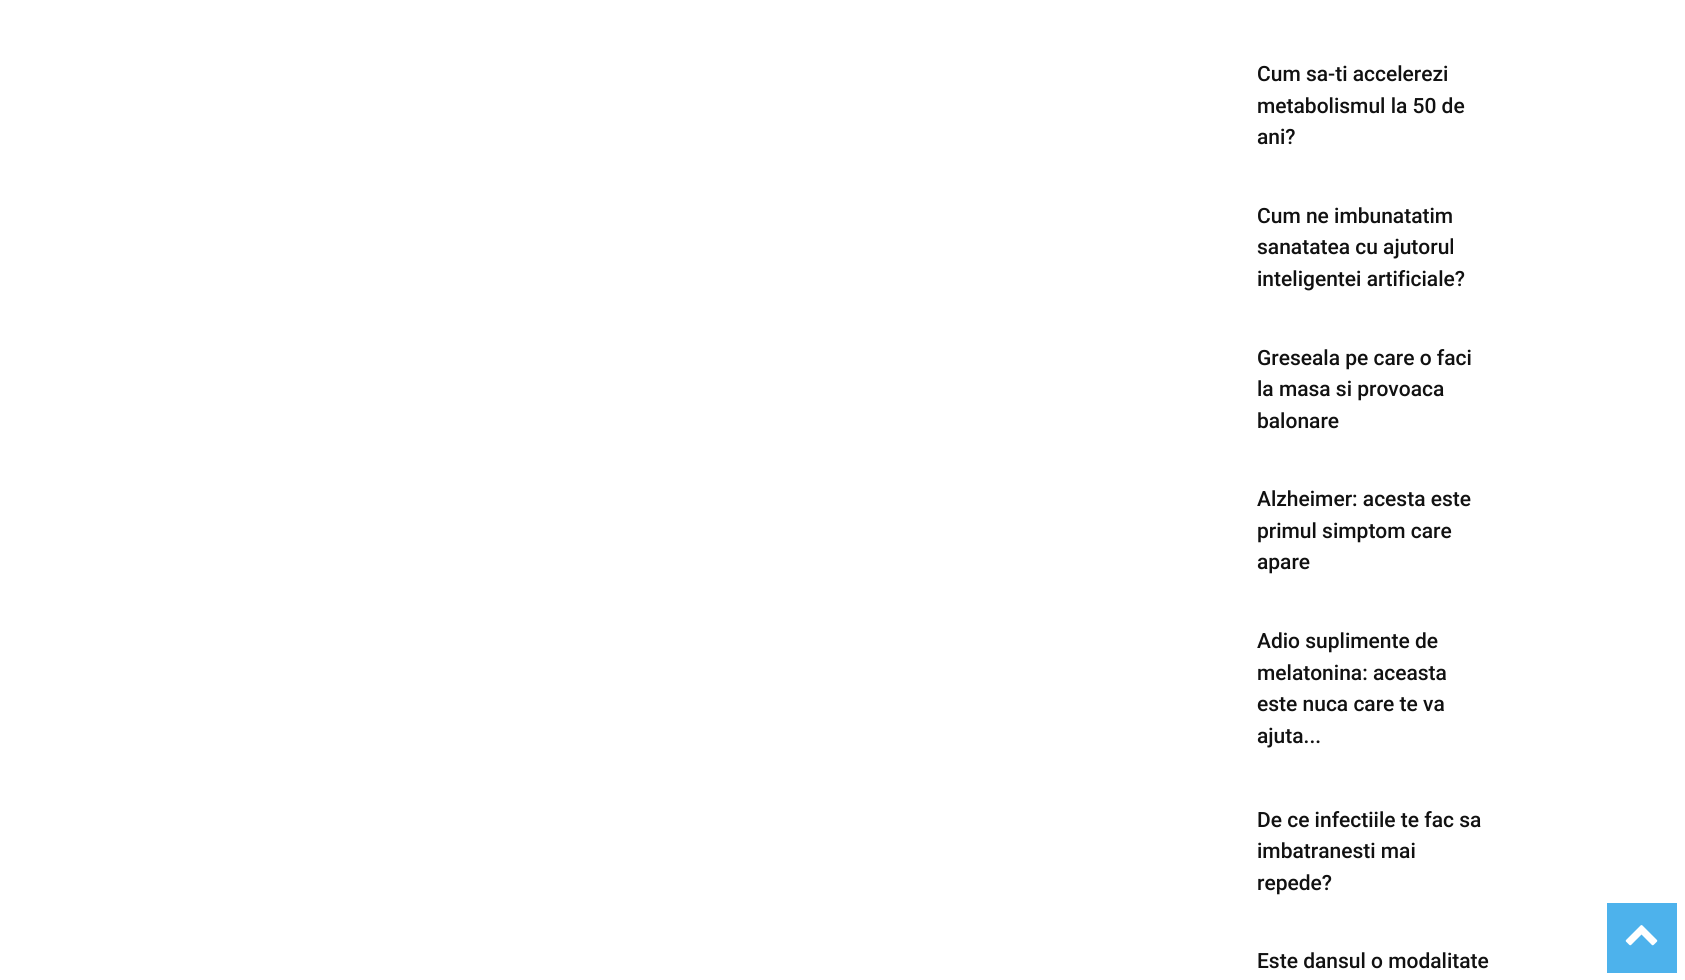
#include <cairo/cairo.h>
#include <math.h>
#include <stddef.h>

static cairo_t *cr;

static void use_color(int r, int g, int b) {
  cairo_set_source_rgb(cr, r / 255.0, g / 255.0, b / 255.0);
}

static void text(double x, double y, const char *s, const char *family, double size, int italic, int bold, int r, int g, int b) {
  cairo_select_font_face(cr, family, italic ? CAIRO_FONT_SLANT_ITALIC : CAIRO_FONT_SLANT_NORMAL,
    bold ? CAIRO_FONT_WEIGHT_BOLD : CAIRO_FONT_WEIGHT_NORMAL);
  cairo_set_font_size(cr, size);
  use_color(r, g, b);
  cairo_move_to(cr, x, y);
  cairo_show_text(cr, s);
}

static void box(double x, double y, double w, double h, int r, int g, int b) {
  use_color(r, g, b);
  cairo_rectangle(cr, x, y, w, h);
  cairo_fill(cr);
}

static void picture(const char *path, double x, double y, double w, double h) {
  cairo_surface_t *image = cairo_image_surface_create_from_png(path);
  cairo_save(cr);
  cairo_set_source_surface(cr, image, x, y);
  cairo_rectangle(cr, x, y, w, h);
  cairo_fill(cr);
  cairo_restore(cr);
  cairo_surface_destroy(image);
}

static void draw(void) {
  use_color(255, 255, 255);
  cairo_paint(cr);
  box(1607, 903, 70, 70, 77, 178, 236);
  picture("img_01.png", 1625, 925, 33, 21);
  text(1257, 81, "Cum sa-ti accelerezi", "Roboto Medium", 21, 0, 0, 17, 17, 17);
  text(1257, 113, "metabolismul la 50 de", "Roboto Medium", 21, 0, 0, 17, 17, 17);
  text(1257, 144, "ani?", "Roboto Medium", 21, 0, 0, 17, 17, 17);
  text(1257, 223, "Cum ne imbunatatim", "Roboto Medium", 21, 0, 0, 17, 17, 17);
  text(1257, 254, "sanatatea cu ajutorul", "Roboto Medium", 21, 0, 0, 17, 17, 17);
  text(1257, 286, "inteligentei artificiale?", "Roboto Medium", 21, 0, 0, 17, 17, 17);
  text(1257, 365, "Greseala pe care o faci", "Roboto Medium", 21, 0, 0, 17, 17, 17);
  text(1257, 396, "la masa si provoaca", "Roboto Medium", 21, 0, 0, 17, 17, 17);
  text(1257, 428, "balonare", "Roboto Medium", 21, 0, 0, 17, 17, 17);
  text(1257, 506, "Alzheimer: acesta este", "Roboto Medium", 21, 0, 0, 17, 17, 17);
  text(1257, 538, "primul simptom care", "Roboto Medium", 21, 0, 0, 17, 17, 17);
  text(1257, 569, "apare", "Roboto Medium", 21, 0, 0, 17, 17, 17);
  text(1257, 648, "Adio suplimente de", "Roboto Medium", 21, 0, 0, 17, 17, 17);
  text(1257, 680, "melatonina: aceasta", "Roboto Medium", 21, 0, 0, 17, 17, 17);
  text(1257, 711, "este nuca care te va", "Roboto Medium", 21, 0, 0, 17, 17, 17);
  text(1257, 743, "ajuta...", "Roboto Medium", 21, 0, 0, 17, 17, 17);
  text(1257, 827, "De ce infectiile te fac sa", "Roboto Medium", 21, 0, 0, 17, 17, 17);
  text(1257, 858, "imbatranesti mai", "Roboto Medium", 21, 0, 0, 17, 17, 17);
  text(1257, 890, "repede?", "Roboto Medium", 21, 0, 0, 17, 17, 17);
  text(1257, 968, "Este dansul o modalitate", "Roboto Medium", 21, 0, 0, 17, 17, 17);
}

int main(void) {
  cairo_surface_t *surface = cairo_image_surface_create(CAIRO_FORMAT_RGB24, 1685, 980);
  cr = cairo_create(surface);
  cairo_font_options_t *options = cairo_font_options_create();
  cairo_font_options_set_hint_metrics(options, CAIRO_HINT_METRICS_OFF);
  cairo_font_options_set_hint_style(options, CAIRO_HINT_STYLE_NONE);
  cairo_set_font_options(cr, options);
  cairo_set_miter_limit(cr, 4);
  draw();
  cairo_surface_write_to_png(surface, "out.png");
  cairo_font_options_destroy(options);
  cairo_destroy(cr);
  cairo_surface_destroy(surface);
  return 0;
}
